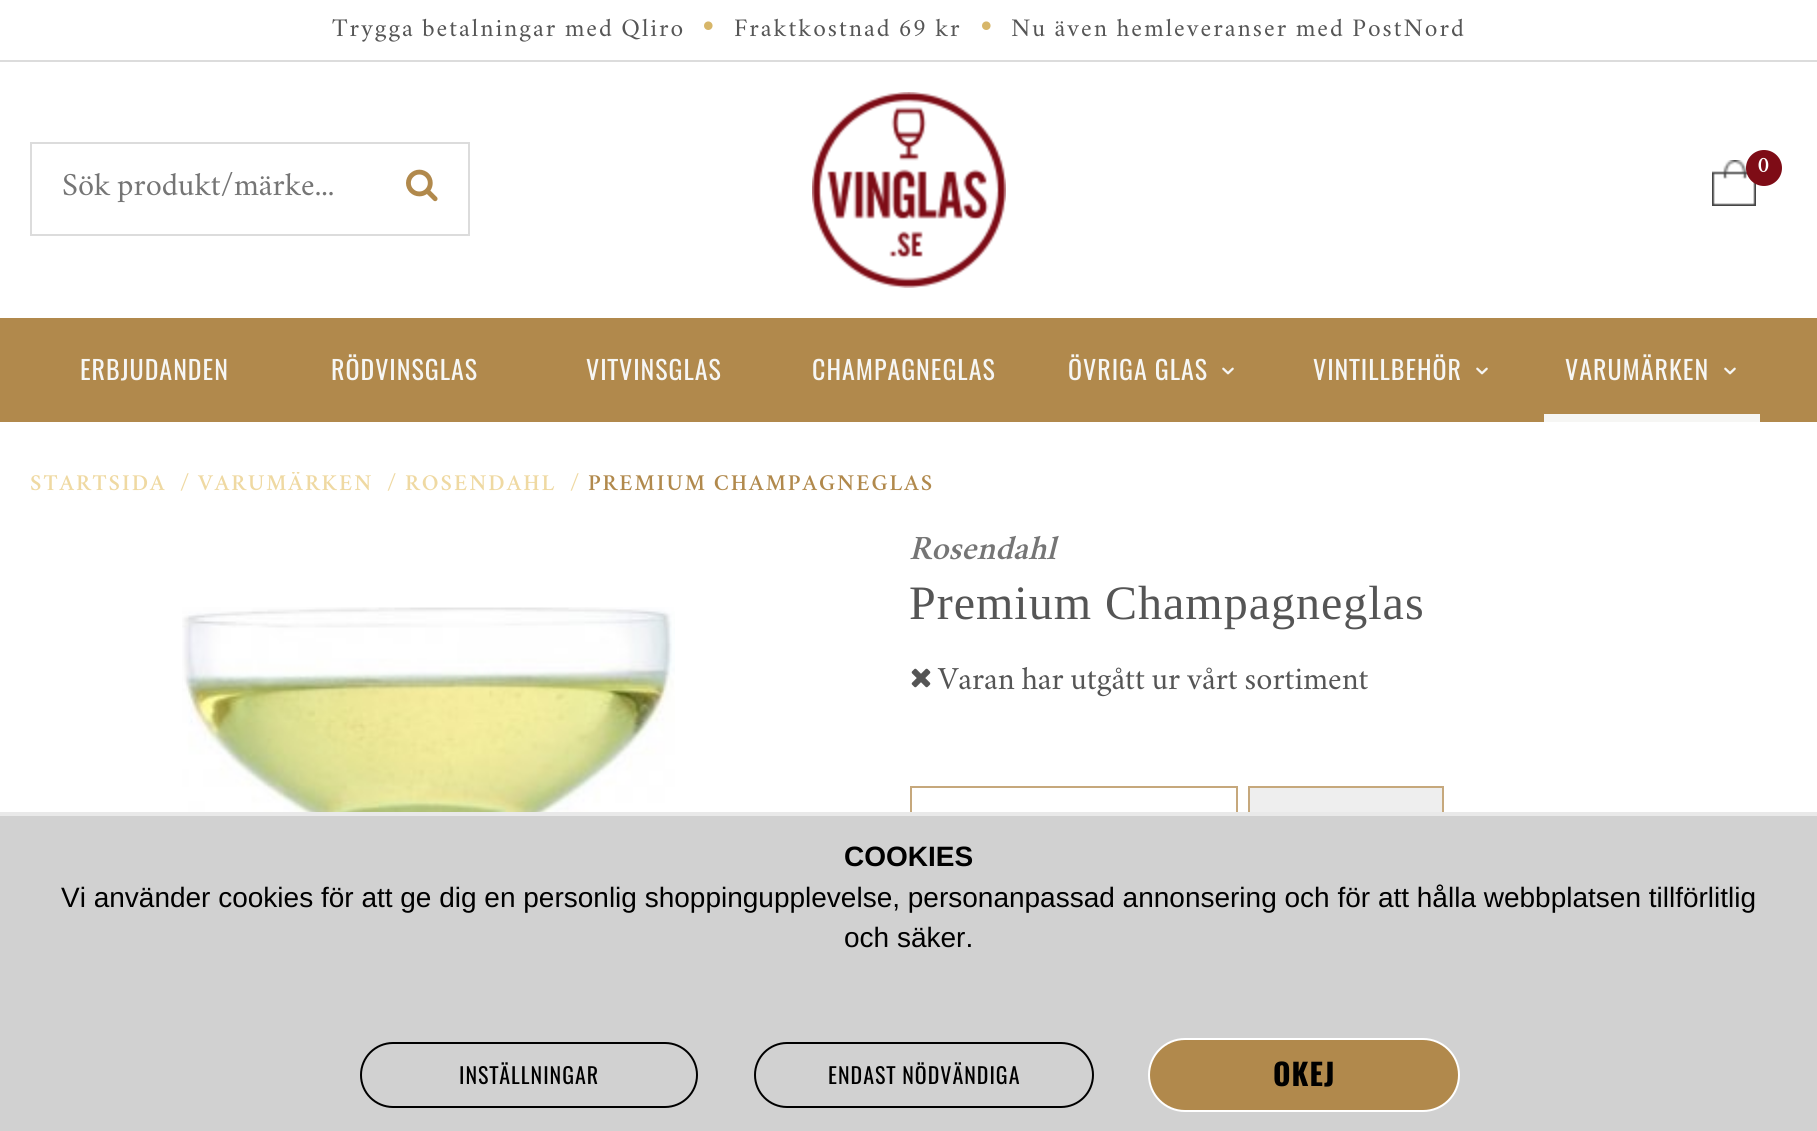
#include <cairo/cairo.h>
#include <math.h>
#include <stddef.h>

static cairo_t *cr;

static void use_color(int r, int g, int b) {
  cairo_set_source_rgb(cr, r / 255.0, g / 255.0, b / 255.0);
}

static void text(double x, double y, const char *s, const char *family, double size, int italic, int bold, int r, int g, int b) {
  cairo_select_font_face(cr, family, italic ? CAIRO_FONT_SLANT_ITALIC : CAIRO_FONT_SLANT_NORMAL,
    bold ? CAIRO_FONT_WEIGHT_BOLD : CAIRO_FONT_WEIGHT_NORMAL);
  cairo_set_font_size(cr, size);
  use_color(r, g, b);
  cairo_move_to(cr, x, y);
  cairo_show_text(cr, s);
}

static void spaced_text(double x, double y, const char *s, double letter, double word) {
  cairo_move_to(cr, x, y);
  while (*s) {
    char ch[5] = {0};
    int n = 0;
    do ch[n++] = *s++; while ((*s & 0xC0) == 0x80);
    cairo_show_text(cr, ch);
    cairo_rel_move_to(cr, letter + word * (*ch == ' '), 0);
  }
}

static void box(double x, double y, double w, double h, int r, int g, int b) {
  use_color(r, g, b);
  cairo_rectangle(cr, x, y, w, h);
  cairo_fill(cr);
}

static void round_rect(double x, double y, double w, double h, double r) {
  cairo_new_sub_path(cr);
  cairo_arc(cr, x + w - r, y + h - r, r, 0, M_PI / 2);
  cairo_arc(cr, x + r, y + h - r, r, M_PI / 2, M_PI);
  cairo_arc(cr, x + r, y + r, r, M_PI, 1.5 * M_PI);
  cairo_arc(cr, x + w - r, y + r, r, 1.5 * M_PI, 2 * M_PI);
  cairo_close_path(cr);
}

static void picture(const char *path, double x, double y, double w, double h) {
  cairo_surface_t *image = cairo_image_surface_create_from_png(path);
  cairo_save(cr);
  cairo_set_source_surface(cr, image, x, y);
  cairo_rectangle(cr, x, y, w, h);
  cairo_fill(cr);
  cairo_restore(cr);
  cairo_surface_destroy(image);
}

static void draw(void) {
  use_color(255, 255, 255);
  cairo_paint(cr);
  box(0, 60, 1817, 2, 220, 220, 220);
  picture("img_01.png", 704, 21, 9, 9);
  picture("img_01.png", 982, 21, 9, 9);
  picture("img_02.png", 812, 92, 194, 196);
  picture("img_03.png", 1712, 160, 44, 46);
  use_color(126, 12, 22);
  cairo_arc(cr, 1764, 168, 18, 0, 2 * M_PI);
  cairo_fill(cr);
  cairo_rectangle(cr, 31, 143, 438, 92);
  use_color(220, 220, 220);
  cairo_stroke(cr);
  picture("img_04.png", 406, 169, 32, 33);
  box(0, 318, 1817, 104, 177, 137, 76);
  picture("img_05.png", 1222, 367, 12, 8);
  picture("img_05.png", 1476, 367, 12, 8);
  box(1544, 414, 216, 8, 246, 246, 244);
  picture("img_05.png", 1724, 367, 12, 8);
  picture("img_06.png", 182, 607, 493, 205);
  picture("img_07.png", 911, 668, 20, 20);
  box(910, 786, 328, 2, 198, 168, 124);
  box(1236, 786, 2, 26, 198, 168, 124);
  box(910, 786, 2, 26, 198, 168, 124);
  box(1250, 788, 192, 24, 238, 238, 238);
  box(1248, 786, 196, 2, 198, 168, 124);
  box(1442, 786, 2, 26, 198, 168, 124);
  box(1248, 786, 2, 26, 198, 168, 124);
  box(0, 816, 1817, 315, 209, 209, 209);
  box(0, 812, 1817, 4, 233, 233, 233);
  round_rect(361, 1043, 336, 64, 32);
  use_color(0, 0, 0);
  cairo_stroke(cr);
  round_rect(755, 1043, 338, 64, 32);
  cairo_stroke(cr);
  use_color(177, 137, 76);
  round_rect(1149, 1039, 310, 72, 36);
  cairo_fill_preserve(cr);
  use_color(255, 255, 255);
  cairo_stroke(cr);
  cairo_select_font_face(cr, "Crimson Text", CAIRO_FONT_SLANT_NORMAL, CAIRO_FONT_WEIGHT_NORMAL);
  cairo_set_font_size(cr, 22);
  use_color(85, 85, 85);
  spaced_text(332, 36, "Trygga betalningar med Qliro", 2, 0);
  spaced_text(734, 36, "Fraktkostnad 69 kr", 2, 0);
  spaced_text(1011, 36, "Nu även hemleveranser med PostNord", 2, 0);
  text(1758, 172, "0", "Crimson Text SemiBold", 20, 0, 0, 255, 255, 255);
  cairo_save(cr);
  cairo_rectangle(cr, 62, 172, 294, 36);
  cairo_clip(cr);
  text(62, 195, "Sök produkt/märke...", "Crimson Text", 28, 0, 0, 117, 117, 117);
  cairo_restore(cr);
  cairo_select_font_face(cr, "Oswald", CAIRO_FONT_SLANT_NORMAL, CAIRO_FONT_WEIGHT_NORMAL);
  cairo_set_font_size(cr, 26);
  use_color(246, 246, 244);
  spaced_text(80, 380, "ERBJUDANDEN", 1, 0);
  spaced_text(331, 380, "RÖDVINSGLAS", 1, 0);
  spaced_text(586, 380, "VITVINSGLAS", 1, 0);
  spaced_text(812, 380, "CHAMPAGNEGLAS", 1, 0);
  spaced_text(1068, 380, "ÖVRIGA GLAS", 1, 0);
  spaced_text(1313, 380, "VINTILLBEHÖR", 1, 0);
  spaced_text(1565, 380, "VARUMÄRKEN", 1, 0);
  cairo_select_font_face(cr, "Crimson Text SemiBold", CAIRO_FONT_SLANT_NORMAL, CAIRO_FONT_WEIGHT_NORMAL);
  cairo_set_font_size(cr, 20);
  use_color(239, 217, 162);
  spaced_text(30, 490, "STARTSIDA", 2, 0);
  spaced_text(180, 490, "/", 2, 0);
  cairo_save(cr);
  cairo_rectangle(cr, 30, 472, 1758, 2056);
  cairo_clip(cr);
  spaced_text(198, 490, "VARUMÄRKEN", 2, 0);
  cairo_restore(cr);
  spaced_text(387, 490, "/ ROSENDAHL", 2, 0);
  spaced_text(570, 490, "/", 2, 0);
  use_color(177, 137, 76);
  spaced_text(588, 490, "PREMIUM CHAMPAGNEGLAS", 2, 0);
  text(909, 559, "Rosendahl", "Crimson Text SemiBold", 30, 1, 0, 117, 117, 117);
  cairo_select_font_face(cr, "Liberation Serif", CAIRO_FONT_SLANT_NORMAL, CAIRO_FONT_WEIGHT_NORMAL);
  cairo_set_font_size(cr, 48);
  use_color(85, 85, 85);
  spaced_text(909, 619, "Premium Champagneglas", 1, 0);
  text(938, 689, "Varan har utgått ur vårt sortiment", "Crimson Text", 28, 0, 0, 85, 85, 85);
  text(844, 866, "COOKIES", "Liberation Sans", 28, 0, 1, 0, 0, 0);
  text(61, 907, "Vi använder cookies för att ge dig en personlig shoppingupplevelse, personanpassad annonsering och för att hålla webbplatsen tillförlitlig", "Liberation Sans", 28, 0, 0, 0, 0, 0);
  text(844, 947, "och säker.", "Liberation Sans", 28, 0, 0, 0, 0, 0);
  cairo_select_font_face(cr, "Oswald", CAIRO_FONT_SLANT_NORMAL, CAIRO_FONT_WEIGHT_NORMAL);
  cairo_set_font_size(cr, 22);
  spaced_text(459, 1084, "INSTÄLLNINGAR", 1, 0);
  spaced_text(828, 1084, "ENDAST NÖDVÄNDIGA", 1, 0);
  cairo_select_font_face(cr, "Oswald", CAIRO_FONT_SLANT_NORMAL, CAIRO_FONT_WEIGHT_BOLD);
  cairo_set_font_size(cr, 30);
  spaced_text(1273, 1086, "OKEJ", 1, 0);
}

int main(void) {
  cairo_surface_t *surface = cairo_image_surface_create(CAIRO_FORMAT_RGB24, 1817, 1131);
  cr = cairo_create(surface);
  cairo_font_options_t *options = cairo_font_options_create();
  cairo_font_options_set_hint_metrics(options, CAIRO_HINT_METRICS_OFF);
  cairo_font_options_set_hint_style(options, CAIRO_HINT_STYLE_NONE);
  cairo_set_font_options(cr, options);
  cairo_set_miter_limit(cr, 4);
  draw();
  cairo_surface_write_to_png(surface, "out.png");
  cairo_font_options_destroy(options);
  cairo_destroy(cr);
  cairo_surface_destroy(surface);
  return 0;
}
